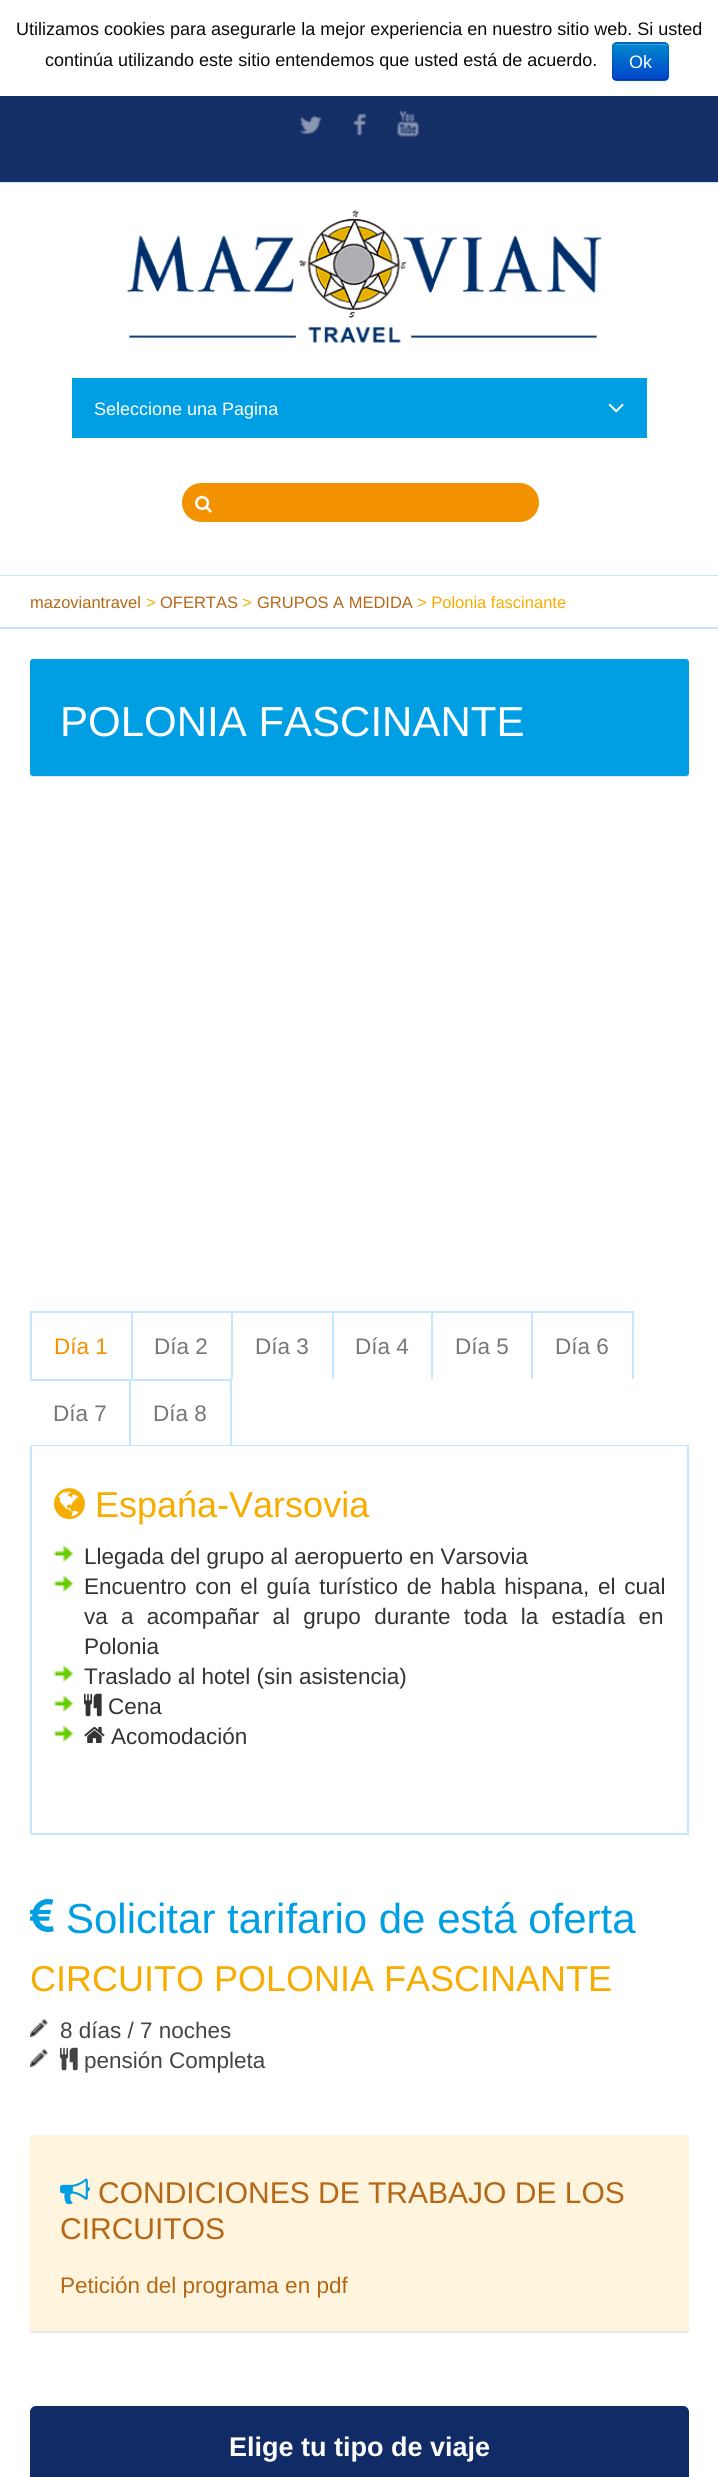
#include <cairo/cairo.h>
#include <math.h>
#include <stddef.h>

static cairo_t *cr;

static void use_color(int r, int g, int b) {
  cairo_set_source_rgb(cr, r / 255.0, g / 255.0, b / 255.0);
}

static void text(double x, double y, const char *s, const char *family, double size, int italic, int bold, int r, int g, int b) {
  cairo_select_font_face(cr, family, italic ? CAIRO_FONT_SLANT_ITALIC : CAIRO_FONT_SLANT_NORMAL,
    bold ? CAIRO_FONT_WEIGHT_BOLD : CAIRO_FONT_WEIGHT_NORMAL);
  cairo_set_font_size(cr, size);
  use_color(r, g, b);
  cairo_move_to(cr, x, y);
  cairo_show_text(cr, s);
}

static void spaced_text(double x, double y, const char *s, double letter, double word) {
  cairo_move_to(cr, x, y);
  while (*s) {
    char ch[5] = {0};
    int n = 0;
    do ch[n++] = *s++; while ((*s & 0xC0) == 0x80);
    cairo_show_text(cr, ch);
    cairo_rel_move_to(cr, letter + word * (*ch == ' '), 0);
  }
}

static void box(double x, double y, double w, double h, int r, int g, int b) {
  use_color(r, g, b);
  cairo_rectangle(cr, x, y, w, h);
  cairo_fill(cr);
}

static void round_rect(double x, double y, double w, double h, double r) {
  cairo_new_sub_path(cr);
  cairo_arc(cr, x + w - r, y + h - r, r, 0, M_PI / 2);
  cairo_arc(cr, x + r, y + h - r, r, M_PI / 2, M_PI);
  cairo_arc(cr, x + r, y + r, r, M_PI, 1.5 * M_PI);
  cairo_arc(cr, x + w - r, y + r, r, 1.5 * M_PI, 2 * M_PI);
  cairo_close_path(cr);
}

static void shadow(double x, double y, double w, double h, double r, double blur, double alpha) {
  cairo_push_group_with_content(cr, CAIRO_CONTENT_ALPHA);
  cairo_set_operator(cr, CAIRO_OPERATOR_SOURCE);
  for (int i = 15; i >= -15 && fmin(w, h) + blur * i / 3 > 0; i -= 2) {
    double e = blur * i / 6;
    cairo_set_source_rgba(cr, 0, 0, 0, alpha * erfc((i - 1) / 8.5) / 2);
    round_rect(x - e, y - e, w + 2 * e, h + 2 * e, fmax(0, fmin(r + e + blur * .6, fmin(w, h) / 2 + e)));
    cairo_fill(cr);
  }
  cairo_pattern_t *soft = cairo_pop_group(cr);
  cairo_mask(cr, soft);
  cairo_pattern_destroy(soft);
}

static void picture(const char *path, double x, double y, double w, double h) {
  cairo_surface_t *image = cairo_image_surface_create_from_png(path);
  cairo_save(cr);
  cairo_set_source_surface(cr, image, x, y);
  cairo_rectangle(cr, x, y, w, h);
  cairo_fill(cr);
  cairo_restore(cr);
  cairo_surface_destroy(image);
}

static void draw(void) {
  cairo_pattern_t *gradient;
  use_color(20, 46, 102);
  cairo_paint(cr);
  box(0, 0, 718, 96, 255, 255, 255);
  use_color(0, 0, 0);
  shadow(612, 44, 57, 39, 5, 1.5, 0.05);
  use_color(0, 109, 204);
  round_rect(612, 42, 57, 39, 5);
  cairo_fill(cr);
  cairo_save(cr);
  round_rect(612, 42, 57, 39, 5);
  cairo_clip(cr);
  gradient = cairo_pattern_create_linear(641, 44, 641, 80);
  cairo_pattern_add_color_stop_rgba(gradient, 0, 0, 0.533, 0.8, 1);
  cairo_pattern_add_color_stop_rgba(gradient, 1, 0, 0.267, 0.8, 1);
  cairo_set_source(cr, gradient);
  cairo_pattern_destroy(gradient);
  cairo_rectangle(cr, 612, 44, 57, 36);
  cairo_fill(cr);
  cairo_restore(cr);
  use_color(51, 159, 214);
  cairo_new_path(cr);
  cairo_move_to(cr, 616, 45);
  cairo_line_to(cr, 664, 45);
  cairo_curve_to(cr, 666, 45, 668, 46, 668, 48);
  cairo_curve_to(cr, 668, 42, 661, 44, 657, 44);
  cairo_line_to(cr, 625, 44);
  cairo_curve_to(cr, 621, 44, 614, 42, 614, 48);
  cairo_curve_to(cr, 614, 46, 615, 45, 616, 45);
  cairo_close_path(cr);
  cairo_fill(cr);
  cairo_new_path(cr);
  cairo_move_to(cr, 667, 79);
  cairo_curve_to(cr, 666.5, 80, 665.5, 80, 664.5, 80);
  cairo_line_to(cr, 616.5, 80);
  cairo_curve_to(cr, 615.5, 80, 614.5, 80, 614, 79);
  cairo_set_source_rgba(cr, 0, 0, 0, 0.25);
  cairo_set_line_width(cr, 1.5);
  cairo_stroke(cr);
  cairo_new_path(cr);
  cairo_move_to(cr, 614, 79);
  cairo_curve_to(cr, 613, 78.5, 613, 77.5, 613, 76.5);
  cairo_line_to(cr, 613, 46.5);
  cairo_curve_to(cr, 613, 45.5, 613, 44.5, 614, 44);
  cairo_curve_to(cr, 614.5, 43, 615.5, 43, 616.5, 43);
  cairo_line_to(cr, 664.5, 43);
  cairo_curve_to(cr, 665.5, 43, 666.5, 43, 667, 44);
  cairo_curve_to(cr, 668, 44.5, 668, 45.5, 668, 46.5);
  cairo_line_to(cr, 668, 76.5);
  cairo_curve_to(cr, 668, 77.5, 668, 78.5, 667, 79);
  cairo_set_source_rgba(cr, 0, 0, 0, 0.1);
  cairo_stroke(cr);
  box(0, 182, 718, 1, 196, 231, 255);
  picture("img_01.png", 299, 115, 23, 20);
  picture("img_02.png", 353, 113, 14, 23);
  picture("img_03.png", 397, 110, 22, 27);
  box(0, 183, 718, 392, 255, 255, 255);
  box(0, 575, 718, 1, 196, 231, 255);
  picture("img_04.png", 127, 210, 475, 133);
  box(72, 378, 575, 60, 0, 159, 227);
  picture("img_05.png", 608, 403, 16, 10);
  use_color(243, 146, 0);
  round_rect(182, 483, 357, 39, 19.5);
  cairo_fill(cr);
  picture("img_06.png", 195, 495, 17, 18);
  box(0, 576, 718, 1901, 255, 255, 255);
  box(0, 627, 718, 2, 196, 231, 255);
  use_color(230, 230, 230);
  cairo_new_path(cr);
  cairo_move_to(cr, 30, 772);
  cairo_line_to(cr, 30, 774);
  cairo_curve_to(cr, 30, 776, 31, 777, 33, 777);
  cairo_line_to(cr, 686, 777);
  cairo_curve_to(cr, 688, 777, 689, 776, 689, 774);
  cairo_line_to(cr, 689, 663);
  cairo_line_to(cr, 688, 661);
  cairo_line_to(cr, 688, 754);
  cairo_curve_to(cr, 688, 760, 692, 775, 686, 776);
  cairo_line_to(cr, 33, 776);
  cairo_curve_to(cr, 31, 775, 30, 774, 30, 772);
  cairo_close_path(cr);
  cairo_fill(cr);
  use_color(0, 159, 227);
  round_rect(30, 659, 659, 117, 3);
  cairo_fill(cr);
  box(30, 1445, 659, 1, 196, 231, 255);
  box(30, 1311, 102, 2, 196, 231, 255);
  box(131, 1311, 2, 68, 196, 231, 255);
  box(30, 1311, 2, 68, 196, 231, 255);
  box(132, 1311, 201, 2, 196, 231, 255);
  box(231, 1311, 2, 68, 196, 231, 255);
  box(332, 1311, 2, 68, 196, 231, 255);
  box(333, 1311, 99, 2, 196, 231, 255);
  box(431, 1311, 2, 68, 196, 231, 255);
  box(432, 1311, 201, 2, 196, 231, 255);
  box(531, 1311, 2, 68, 196, 231, 255);
  box(632, 1311, 2, 68, 196, 231, 255);
  box(30, 1379, 201, 2, 196, 231, 255);
  box(129, 1379, 2, 67, 196, 231, 255);
  box(230, 1379, 2, 67, 196, 231, 255);
  box(687, 1446, 2, 389, 196, 231, 255);
  box(30, 1833, 659, 2, 196, 231, 255);
  box(30, 1446, 2, 389, 196, 231, 255);
  picture("img_07.png", 54, 1488, 31, 32);
  picture("img_08.png", 54, 1545, 20, 17);
  picture("img_08.png", 54, 1575, 20, 17);
  picture("img_08.png", 54, 1665, 20, 17);
  picture("img_08.png", 54, 1695, 20, 17);
  picture("img_09.png", 84, 1693, 18, 24);
  picture("img_08.png", 54, 1725, 20, 17);
  picture("img_10.png", 84, 1726, 21, 17);
  picture("img_11.png", 30, 1899, 24, 33);
  picture("img_12.png", 30, 2019, 18, 18);
  picture("img_12.png", 30, 2049, 18, 18);
  picture("img_13.png", 60, 2047, 18, 24);
  use_color(230, 230, 230);
  cairo_new_path(cr);
  cairo_move_to(cr, 30, 2328);
  cairo_line_to(cr, 30, 2330);
  cairo_curve_to(cr, 30, 2332, 31, 2333, 33, 2333);
  cairo_line_to(cr, 686, 2333);
  cairo_curve_to(cr, 688, 2333, 689, 2332, 689, 2330);
  cairo_line_to(cr, 689, 2139);
  cairo_line_to(cr, 688, 2137);
  cairo_line_to(cr, 688, 2328);
  cairo_curve_to(cr, 688, 2330, 687, 2331, 686, 2331);
  cairo_line_to(cr, 33, 2331);
  cairo_curve_to(cr, 31, 2331, 30, 2330, 30, 2328);
  cairo_close_path(cr);
  cairo_fill(cr);
  use_color(255, 245, 222);
  round_rect(30, 2135, 659, 196, 3);
  cairo_fill(cr);
  picture("img_14.png", 60, 2178, 30, 27);
  use_color(16, 43, 102);
  round_rect(30, 2406, 659, 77, 6);
  cairo_fill(cr);
  text(16, 35, "Utilizamos cookies para asegurarle la mejor experiencia en nuestro sitio web. Si usted", "Liberation Sans", 18, 0, 0, 10, 10, 10);
  text(45, 66, "continúa utilizando este sitio entendemos que usted está de acuerdo.", "Liberation Sans", 18, 0, 0, 10, 10, 10);
  text(629, 68, "Ok", "Liberation Sans", 18, 0, 0, 255, 255, 255);
  text(94, 415, "Seleccione una Pagina", "Liberation Sans", 18, 0, 0, 255, 255, 255);
  text(30, 608, "mazoviantravel", "Liberation Sans", 16.5, 0, 0, 181, 103, 22);
  text(146, 608, ">", "Liberation Sans", 16.5, 0, 0, 248, 172, 0);
  text(160, 608, "OFERTAS", "Liberation Sans", 16.5, 0, 0, 181, 103, 22);
  text(242, 608, ">", "Liberation Sans", 16.5, 0, 0, 248, 172, 0);
  text(257, 608, "GRUPOS A MEDIDA", "Liberation Sans", 16.5, 0, 0, 181, 103, 22);
  text(417, 608, "> Polonia fascinante", "Liberation Sans", 16.5, 0, 0, 248, 172, 0);
  text(60, 736, "POLONIA FASCINANTE", "Liberation Sans", 42, 0, 0, 255, 255, 255);
  text(54, 1354, "Día 1", "Liberation Sans", 22.5, 0, 0, 243, 146, 0);
  text(154, 1354, "Día 2", "Liberation Sans", 22.5, 0, 0, 119, 119, 119);
  text(255, 1354, "Día 3", "Liberation Sans", 22.5, 0, 0, 119, 119, 119);
  text(355, 1354, "Día 4", "Liberation Sans", 22.5, 0, 0, 119, 119, 119);
  text(455, 1354, "Día 5", "Liberation Sans", 22.5, 0, 0, 119, 119, 119);
  text(555, 1354, "Día 6", "Liberation Sans", 22.5, 0, 0, 119, 119, 119);
  text(53, 1421, "Día 7", "Liberation Sans", 22.5, 0, 0, 119, 119, 119);
  text(153, 1421, "Día 8", "Liberation Sans", 22.5, 0, 0, 119, 119, 119);
  text(95, 1517, "Espańa-Varsovia", "Liberation Sans", 36, 0, 0, 248, 172, 0);
  text(84, 1564, "Llegada del grupo al aeropuerto en Varsovia", "Liberation Sans", 22.5, 0, 0, 51, 51, 51);
  spaced_text(84, 1594, "Encuentro con el guía turístico de habla hispana, el cual", 0, 2.5);
  spaced_text(84, 1624, "va a acompañar al grupo durante toda la estadía en", 0, 7);
  text(84, 1654, "Polonia", "Liberation Sans", 22.5, 0, 0, 51, 51, 51);
  text(84, 1684, "Traslado al hotel (sin asistencia)", "Liberation Sans", 22.5, 0, 0, 51, 51, 51);
  text(108, 1714, "Cena", "Liberation Sans", 22.5, 0, 0, 51, 51, 51);
  text(111, 1744, "Acomodación", "Liberation Sans", 22.5, 0, 0, 51, 51, 51);
  text(66, 1933, "Solicitar tarifario de está oferta", "Liberation Sans", 42, 0, 0, 0, 159, 227);
  text(30, 1991, "CIRCUITO POLONIA FASCINANTE", "Liberation Sans", 36, 0, 0, 248, 172, 0);
  text(60, 2038, "8 días / 7 noches", "Liberation Sans", 22.5, 0, 0, 68, 68, 68);
  text(84, 2068, "pensión Completa", "Liberation Sans", 22.5, 0, 0, 68, 68, 68);
  text(98, 2203, "CONDICIONES DE TRABAJO DE LOS", "Liberation Sans", 30, 0, 0, 181, 103, 22);
  text(60, 2239, "CIRCUITOS", "Liberation Sans", 30, 0, 0, 181, 103, 22);
  text(60, 2293, "Petición del programa en pdf", "Liberation Sans", 22.5, 0, 0, 181, 103, 22);
  text(229, 2456, "Elige tu tipo de viaje", "Liberation Sans", 27, 0, 1, 255, 255, 255);
}

int main(void) {
  cairo_surface_t *surface = cairo_image_surface_create(CAIRO_FORMAT_RGB24, 718, 2477);
  cr = cairo_create(surface);
  cairo_font_options_t *options = cairo_font_options_create();
  cairo_font_options_set_hint_metrics(options, CAIRO_HINT_METRICS_OFF);
  cairo_font_options_set_hint_style(options, CAIRO_HINT_STYLE_NONE);
  cairo_set_font_options(cr, options);
  cairo_set_miter_limit(cr, 4);
  draw();
  cairo_surface_write_to_png(surface, "out.png");
  cairo_font_options_destroy(options);
  cairo_destroy(cr);
  cairo_surface_destroy(surface);
  return 0;
}
